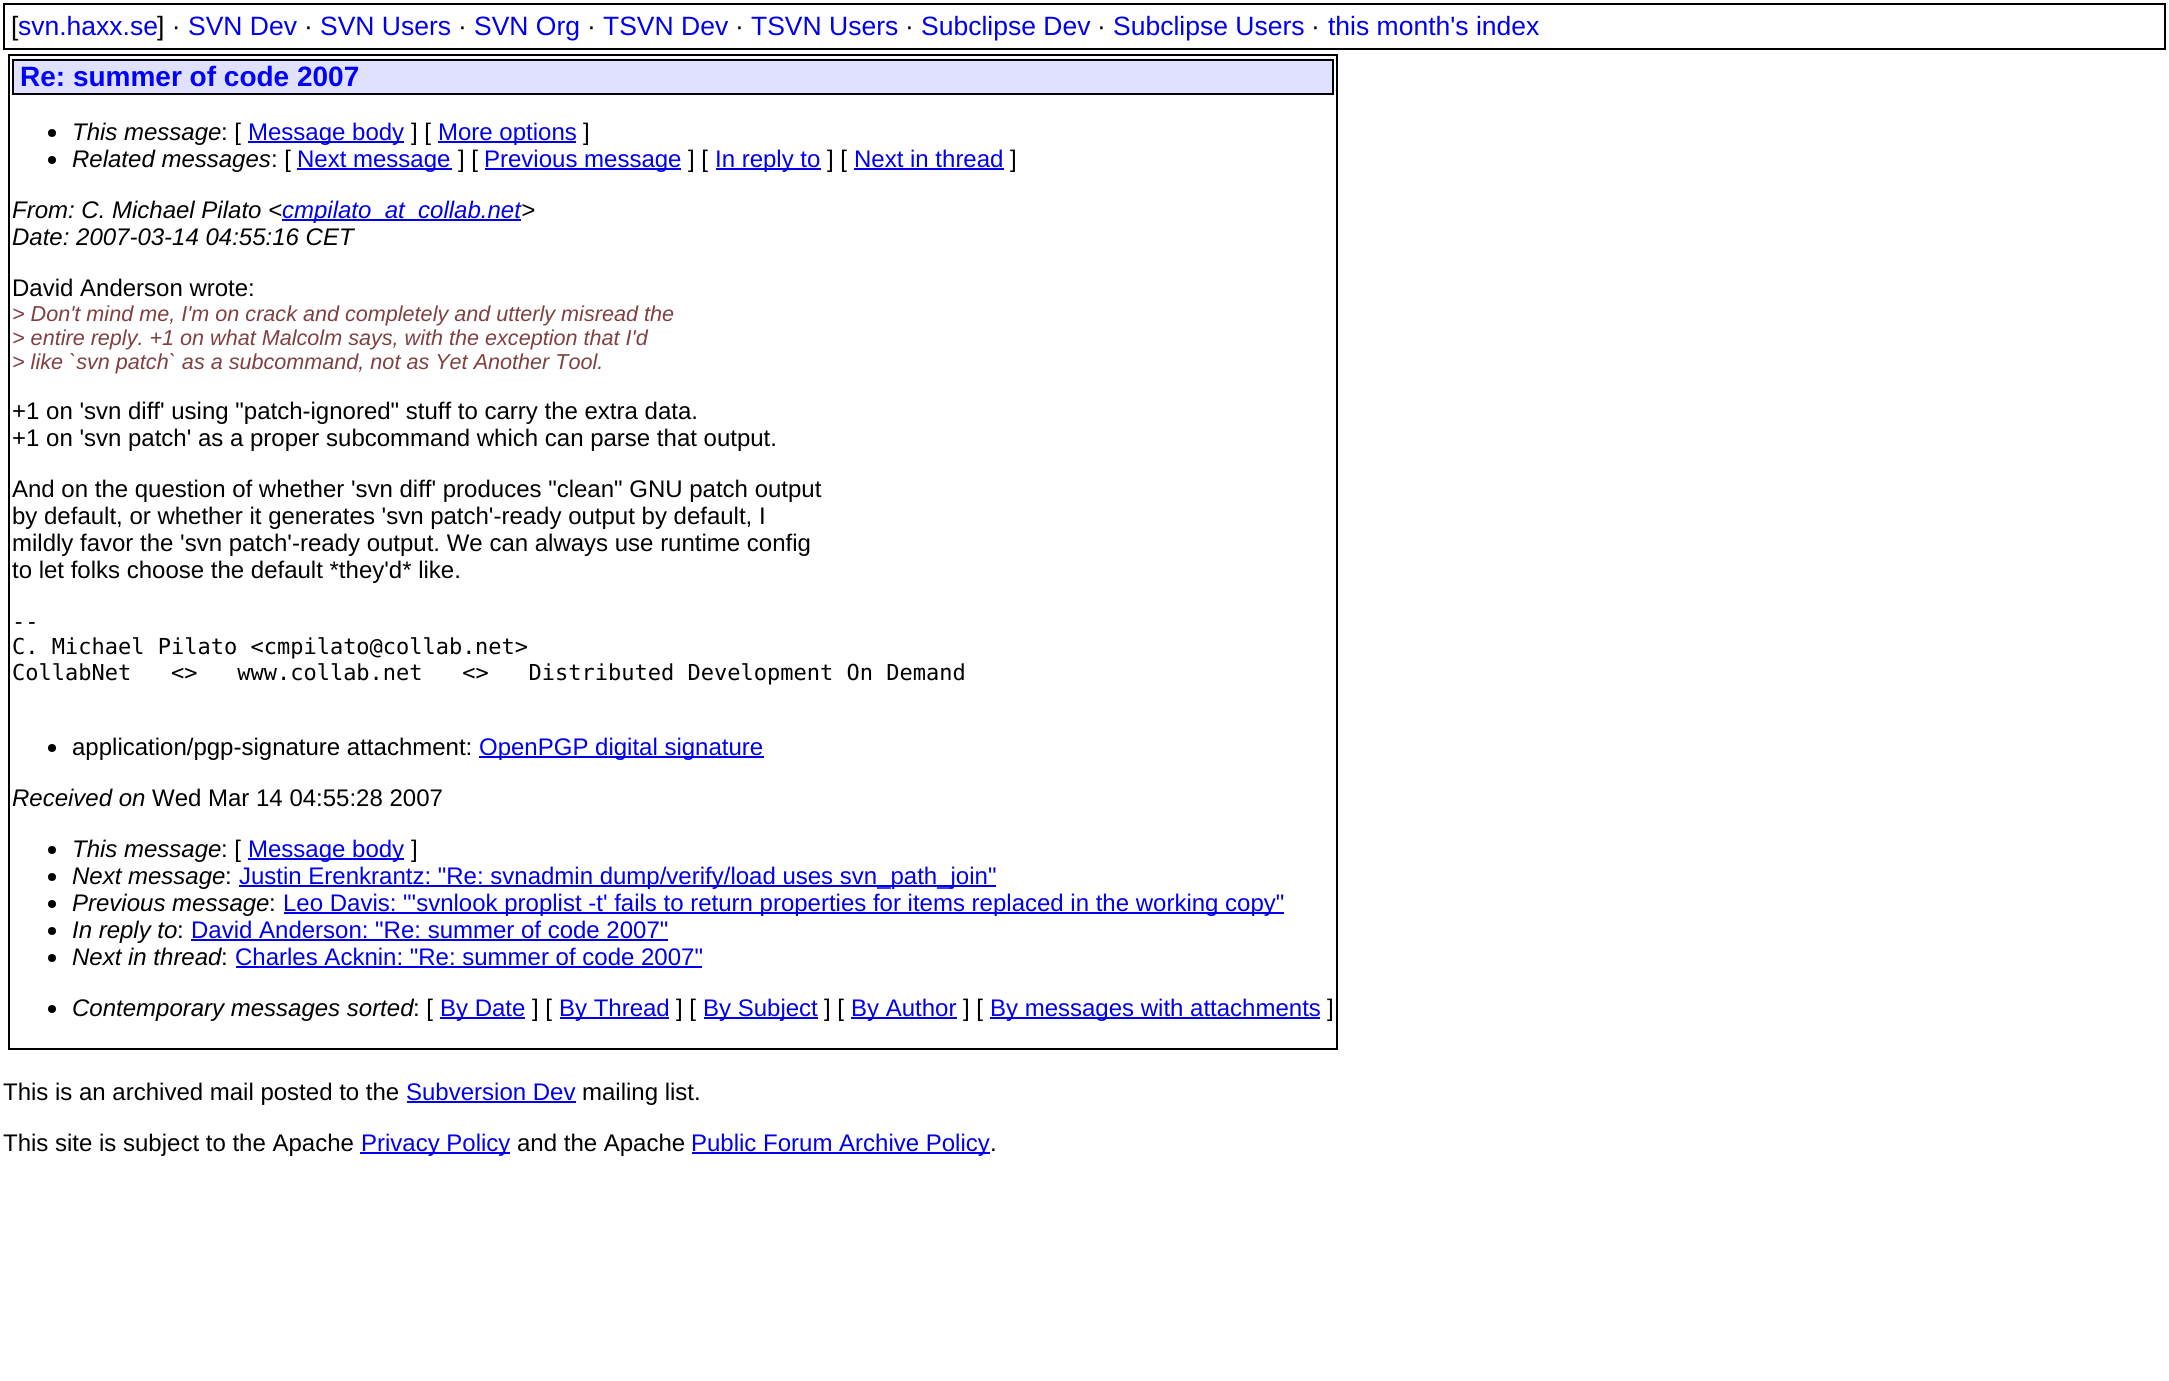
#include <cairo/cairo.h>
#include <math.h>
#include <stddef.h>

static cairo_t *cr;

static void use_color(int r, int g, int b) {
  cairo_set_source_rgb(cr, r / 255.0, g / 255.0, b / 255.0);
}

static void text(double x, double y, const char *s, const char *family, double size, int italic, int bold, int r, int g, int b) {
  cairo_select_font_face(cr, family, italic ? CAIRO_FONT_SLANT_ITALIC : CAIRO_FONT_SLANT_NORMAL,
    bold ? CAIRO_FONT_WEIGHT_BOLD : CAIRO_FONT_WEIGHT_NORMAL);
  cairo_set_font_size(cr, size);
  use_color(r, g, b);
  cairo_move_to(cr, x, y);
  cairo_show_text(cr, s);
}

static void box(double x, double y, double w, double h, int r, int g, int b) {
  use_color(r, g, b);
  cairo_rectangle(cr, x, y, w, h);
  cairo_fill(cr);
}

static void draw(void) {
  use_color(255, 255, 255);
  cairo_paint(cr);
  cairo_rectangle(cr, 4, 4, 2161, 45);
  use_color(0, 0, 0);
  cairo_stroke(cr);
  cairo_rectangle(cr, 9, 55, 1328, 994);
  cairo_stroke(cr);
  use_color(224, 224, 255);
  cairo_rectangle(cr, 13, 60, 1320, 34);
  cairo_fill_preserve(cr);
  use_color(0, 0, 0);
  cairo_stroke(cr);
  cairo_arc(cr, 52, 133, 4, 0, 2 * M_PI);
  cairo_fill(cr);
  box(248, 141, 156, 2, 0, 0, 238);
  box(438, 141, 138, 2, 0, 0, 238);
  use_color(0, 0, 0);
  cairo_arc(cr, 52, 160, 4, 0, 2 * M_PI);
  cairo_fill(cr);
  box(297, 168, 155, 2, 0, 0, 238);
  box(485, 168, 196, 2, 0, 0, 238);
  box(716, 168, 105, 2, 0, 0, 238);
  box(854, 168, 150, 2, 0, 0, 238);
  box(282, 219, 239, 2, 0, 0, 238);
  use_color(0, 0, 0);
  cairo_arc(cr, 52, 748, 4, 0, 2 * M_PI);
  cairo_fill(cr);
  box(479, 756, 285, 2, 0, 0, 238);
  use_color(0, 0, 0);
  cairo_arc(cr, 52, 850, 4, 0, 2 * M_PI);
  cairo_fill(cr);
  box(248, 858, 156, 2, 0, 0, 238);
  use_color(0, 0, 0);
  cairo_arc(cr, 52, 877, 4, 0, 2 * M_PI);
  cairo_fill(cr);
  box(239, 885, 757, 2, 0, 0, 238);
  use_color(0, 0, 0);
  cairo_arc(cr, 52, 904, 4, 0, 2 * M_PI);
  cairo_fill(cr);
  box(284, 912, 1000, 2, 0, 0, 238);
  use_color(0, 0, 0);
  cairo_arc(cr, 52, 931, 4, 0, 2 * M_PI);
  cairo_fill(cr);
  box(191, 939, 477, 2, 0, 0, 238);
  use_color(0, 0, 0);
  cairo_arc(cr, 52, 958, 4, 0, 2 * M_PI);
  cairo_fill(cr);
  box(236, 966, 466, 2, 0, 0, 238);
  use_color(0, 0, 0);
  cairo_arc(cr, 52, 1009, 4, 0, 2 * M_PI);
  cairo_fill(cr);
  box(440, 1017, 85, 2, 0, 0, 238);
  box(560, 1017, 109, 2, 0, 0, 238);
  box(704, 1017, 114, 2, 0, 0, 238);
  box(851, 1017, 106, 2, 0, 0, 238);
  box(990, 1017, 330, 2, 0, 0, 238);
  box(407, 1101, 169, 2, 0, 0, 238);
  box(360, 1152, 150, 2, 0, 0, 238);
  box(692, 1152, 298, 2, 0, 0, 238);
  text(11, 35, "[", "Liberation Sans", 26.5, 0, 0, 0, 0, 0);
  text(18, 35, "svn.haxx.se", "Liberation Sans", 26.5, 0, 0, 0, 0, 238);
  text(157, 35, "] ·", "Liberation Sans", 26.5, 0, 0, 0, 0, 0);
  text(188, 35, "SVN Dev", "Liberation Sans", 26.5, 0, 0, 0, 0, 238);
  text(304, 35, "·", "Liberation Sans", 26.5, 0, 0, 0, 0, 0);
  text(320, 35, "SVN Users", "Liberation Sans", 26.5, 0, 0, 0, 0, 238);
  text(458, 35, "·", "Liberation Sans", 26.5, 0, 0, 0, 0, 0);
  text(474, 35, "SVN Org", "Liberation Sans", 26.5, 0, 0, 0, 0, 238);
  text(587, 35, "·", "Liberation Sans", 26.5, 0, 0, 0, 0, 0);
  text(603, 35, "TSVN Dev", "Liberation Sans", 26.5, 0, 0, 0, 0, 238);
  text(735, 35, "·", "Liberation Sans", 26.5, 0, 0, 0, 0, 0);
  text(751, 35, "TSVN Users", "Liberation Sans", 26.5, 0, 0, 0, 0, 238);
  text(905, 35, "·", "Liberation Sans", 26.5, 0, 0, 0, 0, 0);
  text(921, 35, "Subclipse Dev", "Liberation Sans", 26.5, 0, 0, 0, 0, 238);
  text(1097, 35, "·", "Liberation Sans", 26.5, 0, 0, 0, 0, 0);
  text(1113, 35, "Subclipse Users", "Liberation Sans", 26.5, 0, 0, 0, 0, 238);
  text(1311, 35, "·", "Liberation Sans", 26.5, 0, 0, 0, 0, 0);
  text(1328, 35, "this month's index", "Liberation Sans", 26.5, 0, 0, 0, 0, 238);
  text(20, 86, "Re: summer of code 2007", "Liberation Sans", 28, 0, 1, 0, 0, 255);
  text(72, 140, "This message", "Liberation Sans", 24, 1, 0, 0, 0, 0);
  text(221, 140, ": [", "Liberation Sans", 24, 0, 0, 0, 0, 0);
  text(248, 140, "Message body", "Liberation Sans", 24, 0, 0, 0, 0, 238);
  text(411, 140, "] [", "Liberation Sans", 24, 0, 0, 0, 0, 0);
  text(438, 140, "More options", "Liberation Sans", 24, 0, 0, 0, 0, 238);
  text(583, 140, "]", "Liberation Sans", 24, 0, 0, 0, 0, 0);
  text(72, 167, "Related messages", "Liberation Sans", 24, 1, 0, 0, 0, 0);
  text(271, 167, ": [", "Liberation Sans", 24, 0, 0, 0, 0, 0);
  text(297, 167, "Next message", "Liberation Sans", 24, 0, 0, 0, 0, 238);
  text(458, 167, "] [", "Liberation Sans", 24, 0, 0, 0, 0, 0);
  text(484, 167, "Previous message", "Liberation Sans", 24, 0, 0, 0, 0, 238);
  text(688, 167, "] [", "Liberation Sans", 24, 0, 0, 0, 0, 0);
  text(715, 167, "In reply to", "Liberation Sans", 24, 0, 0, 0, 0, 238);
  text(827, 167, "] [", "Liberation Sans", 24, 0, 0, 0, 0, 0);
  text(854, 167, "Next in thread", "Liberation Sans", 24, 0, 0, 0, 0, 238);
  text(1010, 167, "]", "Liberation Sans", 24, 0, 0, 0, 0, 0);
  text(12, 218, "From: C. Michael Pilato <", "Liberation Sans", 24, 1, 0, 0, 0, 0);
  text(282, 218, "cmpilato_at_collab.net", "Liberation Sans", 24, 1, 0, 0, 0, 238);
  text(521, 218, ">", "Liberation Sans", 24, 1, 0, 0, 0, 0);
  text(12, 245, "Date: 2007-03-14 04:55:16 CET", "Liberation Sans", 24, 1, 0, 0, 0, 0);
  text(12, 296, "David Anderson wrote:", "Liberation Sans", 24, 0, 0, 0, 0, 0);
  text(12, 321, "> Don't mind me, I'm on crack and completely and utterly misread the", "Liberation Sans", 21.6, 1, 0, 128, 64, 64);
  text(12, 345, "> entire reply. +1 on what Malcolm says, with the exception that I'd", "Liberation Sans", 21.6, 1, 0, 128, 64, 64);
  text(12, 369, "> like `svn patch` as a subcommand, not as Yet Another Tool.", "Liberation Sans", 21.6, 1, 0, 128, 64, 64);
  text(12, 419, "+1 on 'svn diff' using \"patch-ignored\" stuff to carry the extra data.", "Liberation Sans", 24, 0, 0, 0, 0, 0);
  text(12, 446, "+1 on 'svn patch' as a proper subcommand which can parse that output.", "Liberation Sans", 24, 0, 0, 0, 0, 0);
  text(12, 497, "And on the question of whether 'svn diff' produces \"clean\" GNU patch output", "Liberation Sans", 24, 0, 0, 0, 0, 0);
  text(12, 524, "by default, or whether it generates 'svn patch'-ready output by default, I", "Liberation Sans", 24, 0, 0, 0, 0, 0);
  text(12, 551, "mildly favor the 'svn patch'-ready output. We can always use runtime config", "Liberation Sans", 24, 0, 0, 0, 0, 0);
  text(12, 578, "to let folks choose the default *they'd* like.", "Liberation Sans", 24, 0, 0, 0, 0, 0);
  text(12, 629, "--", "DejaVu Sans Mono", 22, 0, 0, 0, 0, 0);
  text(12, 654, "C. Michael Pilato <cmpilato@collab.", "DejaVu Sans Mono", 22, 0, 0, 0, 0, 0);
  text(475, 654, "net>", "DejaVu Sans Mono", 22, 0, 0, 0, 0, 0);
  text(12, 680, "CollabNet   <>   www.collab.net   <>   Distributed Development On Demand", "DejaVu Sans Mono", 22, 0, 0, 0, 0, 0);
  text(72, 755, "application/pgp-signature attachment:", "Liberation Sans", 24, 0, 0, 0, 0, 0);
  text(479, 755, "OpenPGP digital signature", "Liberation Sans", 24, 0, 0, 0, 0, 238);
  text(12, 806, "Received on", "Liberation Sans", 24, 1, 0, 0, 0, 0);
  text(152, 806, "Wed Mar 14 04:55:28 2007", "Liberation Sans", 24, 0, 0, 0, 0, 0);
  text(72, 857, "This message", "Liberation Sans", 24, 1, 0, 0, 0, 0);
  text(221, 857, ": [", "Liberation Sans", 24, 0, 0, 0, 0, 0);
  text(248, 857, "Message body", "Liberation Sans", 24, 0, 0, 0, 0, 238);
  text(411, 857, "]", "Liberation Sans", 24, 0, 0, 0, 0, 0);
  text(72, 884, "Next message", "Liberation Sans", 24, 1, 0, 0, 0, 0);
  text(225, 884, ":", "Liberation Sans", 24, 0, 0, 0, 0, 0);
  text(239, 884, "Justin Erenkrantz: \"Re: svnadmin dump/verify/load uses svn_path_join\"", "Liberation Sans", 24, 0, 0, 0, 0, 238);
  text(72, 911, "Previous message", "Liberation Sans", 24, 1, 0, 0, 0, 0);
  text(269, 911, ":", "Liberation Sans", 24, 0, 0, 0, 0, 0);
  text(283, 911, "Leo Davis: \"'svnlook proplist -t' fails to return properties for items replaced in the working copy\"", "Liberation Sans", 24, 0, 0, 0, 0, 238);
  text(72, 938, "In reply to", "Liberation Sans", 24, 1, 0, 0, 0, 0);
  text(177, 938, ":", "Liberation Sans", 24, 0, 0, 0, 0, 0);
  text(191, 938, "David Anderson: \"Re: summer of code 2007\"", "Liberation Sans", 24, 0, 0, 0, 0, 238);
  text(72, 965, "Next in thread", "Liberation Sans", 24, 1, 0, 0, 0, 0);
  text(221, 965, ":", "Liberation Sans", 24, 0, 0, 0, 0, 0);
  text(235, 965, "Charles Acknin: \"Re: summer of code 2007\"", "Liberation Sans", 24, 0, 0, 0, 0, 238);
  text(72, 1016, "Contemporary messages sorted", "Liberation Sans", 24, 1, 0, 0, 0, 0);
  text(413, 1016, ": [", "Liberation Sans", 24, 0, 0, 0, 0, 0);
  text(440, 1016, "By Date", "Liberation Sans", 24, 0, 0, 0, 0, 238);
  text(532, 1016, "] [", "Liberation Sans", 24, 0, 0, 0, 0, 0);
  text(559, 1016, "By Thread", "Liberation Sans", 24, 0, 0, 0, 0, 238);
  text(676, 1016, "] [", "Liberation Sans", 24, 0, 0, 0, 0, 0);
  text(703, 1016, "By Subject", "Liberation Sans", 24, 0, 0, 0, 0, 238);
  text(824, 1016, "] [", "Liberation Sans", 24, 0, 0, 0, 0, 0);
  text(851, 1016, "By Author", "Liberation Sans", 24, 0, 0, 0, 0, 238);
  text(963, 1016, "] [", "Liberation Sans", 24, 0, 0, 0, 0, 0);
  text(990, 1016, "By messages with attachments", "Liberation Sans", 24, 0, 0, 0, 0, 238);
  text(1327, 1016, "]", "Liberation Sans", 24, 0, 0, 0, 0, 0);
  text(3, 1100, "This is an archived mail posted to the", "Liberation Sans", 24, 0, 0, 0, 0, 0);
  text(406, 1100, "Subversion Dev", "Liberation Sans", 24, 0, 0, 0, 0, 238);
  text(582, 1100, "mailing list.", "Liberation Sans", 24, 0, 0, 0, 0, 0);
  text(3, 1151, "This site is subject to the Apache", "Liberation Sans", 24, 0, 0, 0, 0, 0);
  text(361, 1151, "Privacy Policy", "Liberation Sans", 24, 0, 0, 0, 0, 238);
  text(517, 1151, "and the Apache", "Liberation Sans", 24, 0, 0, 0, 0, 0);
  text(691, 1151, "Public Forum Archive Policy", "Liberation Sans", 24, 0, 0, 0, 0, 238);
  text(990, 1151, ".", "Liberation Sans", 24, 0, 0, 0, 0, 0);
}

int main(void) {
  cairo_surface_t *surface = cairo_image_surface_create(CAIRO_FORMAT_RGB24, 2169, 1381);
  cr = cairo_create(surface);
  cairo_font_options_t *options = cairo_font_options_create();
  cairo_font_options_set_hint_metrics(options, CAIRO_HINT_METRICS_OFF);
  cairo_font_options_set_hint_style(options, CAIRO_HINT_STYLE_NONE);
  cairo_set_font_options(cr, options);
  cairo_set_miter_limit(cr, 4);
  draw();
  cairo_surface_write_to_png(surface, "out.png");
  cairo_font_options_destroy(options);
  cairo_destroy(cr);
  cairo_surface_destroy(surface);
  return 0;
}
